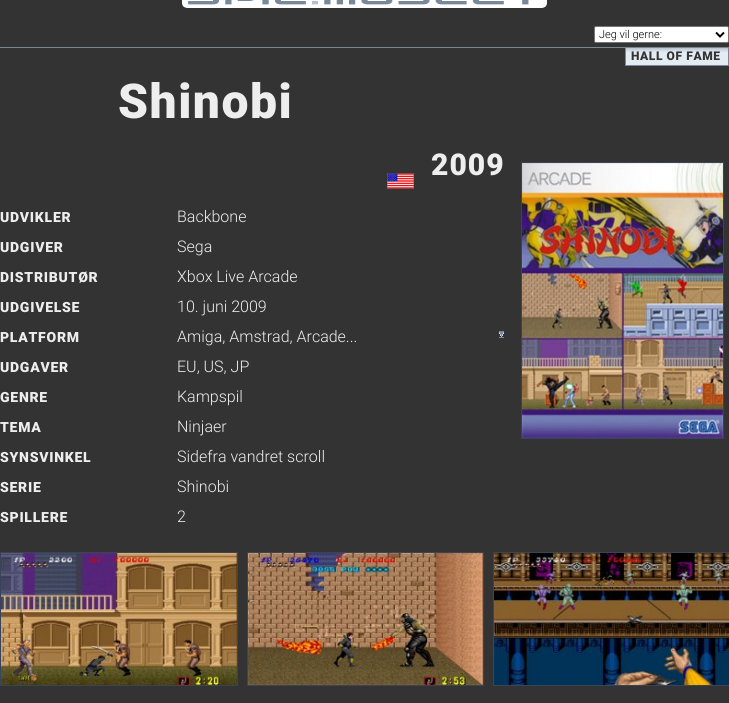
#include <cairo/cairo.h>
#include <math.h>
#include <stddef.h>

static cairo_t *cr;

static void use_color(int r, int g, int b) {
  cairo_set_source_rgb(cr, r / 255.0, g / 255.0, b / 255.0);
}

static void text(double x, double y, const char *s, const char *family, double size, int italic, int bold, int r, int g, int b) {
  cairo_select_font_face(cr, family, italic ? CAIRO_FONT_SLANT_ITALIC : CAIRO_FONT_SLANT_NORMAL,
    bold ? CAIRO_FONT_WEIGHT_BOLD : CAIRO_FONT_WEIGHT_NORMAL);
  cairo_set_font_size(cr, size);
  use_color(r, g, b);
  cairo_move_to(cr, x, y);
  cairo_show_text(cr, s);
}

static void spaced_text(double x, double y, const char *s, double letter, double word) {
  cairo_move_to(cr, x, y);
  while (*s) {
    char ch[5] = {0};
    int n = 0;
    do ch[n++] = *s++; while ((*s & 0xC0) == 0x80);
    cairo_show_text(cr, ch);
    cairo_rel_move_to(cr, letter + word * (*ch == ' '), 0);
  }
}

static void box(double x, double y, double w, double h, int r, int g, int b) {
  use_color(r, g, b);
  cairo_rectangle(cr, x, y, w, h);
  cairo_fill(cr);
}

static void round_rect(double x, double y, double w, double h, double r) {
  cairo_new_sub_path(cr);
  cairo_arc(cr, x + w - r, y + h - r, r, 0, M_PI / 2);
  cairo_arc(cr, x + r, y + h - r, r, M_PI / 2, M_PI);
  cairo_arc(cr, x + r, y + r, r, M_PI, 1.5 * M_PI);
  cairo_arc(cr, x + w - r, y + r, r, 1.5 * M_PI, 2 * M_PI);
  cairo_close_path(cr);
}

static void picture(const char *path, double x, double y, double w, double h) {
  cairo_surface_t *image = cairo_image_surface_create_from_png(path);
  cairo_save(cr);
  cairo_set_source_surface(cr, image, x, y);
  cairo_rectangle(cr, x, y, w, h);
  cairo_fill(cr);
  cairo_restore(cr);
  cairo_surface_destroy(image);
}

static void draw(void) {
  use_color(51, 51, 51);
  cairo_paint(cr);
  picture("img_01.png", 182, 0, 365, 8);
  use_color(255, 255, 255);
  round_rect(594.5, 26.5, 134, 16, 1.5);
  cairo_fill_preserve(cr);
  use_color(118, 118, 118);
  cairo_set_line_width(cr, 1);
  cairo_stroke(cr);
  cairo_new_path(cr);
  cairo_move_to(cr, 716, 32.5);
  cairo_line_to(cr, 720, 36.5);
  cairo_line_to(cr, 724, 32.5);
  use_color(0, 0, 0);
  cairo_set_line_width(cr, 2);
  cairo_stroke(cr);
  box(0, 47, 729, 1, 119, 136, 153);
  box(626, 52, 102, 13, 227, 235, 243);
  picture("img_02.png", 626, 48, 102, 4);
  box(728, 48, 1, 18, 124, 134, 156);
  box(625, 65, 104, 1, 124, 134, 156);
  box(625, 48, 1, 18, 124, 134, 156);
  picture("img_03.png", 387, 173, 27, 16);
  picture("img_04.png", 499, 331, 5, 7);
  cairo_rectangle(cr, 521.5, 162.5, 202, 276);
  use_color(58, 68, 88);
  cairo_set_line_width(cr, 1);
  cairo_stroke(cr);
  picture("img_05.png", 522, 163, 201, 275);
  cairo_rectangle(cr, 0.5, 552.5, 237, 133);
  cairo_stroke(cr);
  picture("img_06.png", 1, 553, 236, 132);
  cairo_rectangle(cr, 247.5, 552.5, 236, 133);
  cairo_stroke(cr);
  picture("img_07.png", 248, 553, 235, 132);
  cairo_rectangle(cr, 493.5, 552.5, 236, 133);
  cairo_stroke(cr);
  picture("img_08.png", 494, 553, 235, 132);
  text(599, 38, "Jeg vil gerne:", "Roboto Light", 11, 0, 0, 0, 0, 0);
  cairo_select_font_face(cr, "Roboto Black", CAIRO_FONT_SLANT_NORMAL, CAIRO_FONT_WEIGHT_NORMAL);
  cairo_set_font_size(cr, 12);
  use_color(51, 51, 51);
  spaced_text(631, 60, "HALL OF FAME", 0.6, 0);
  cairo_set_font_size(cr, 48);
  use_color(238, 238, 238);
  spaced_text(118, 118, "Shinobi", 1.5, 0);
  cairo_set_font_size(cr, 30);
  spaced_text(431, 175, "2009", 1, 0);
  cairo_set_font_size(cr, 14);
  spaced_text(0, 222, "UDVIKLER", 0.75, 0);
  text(177, 222, "Backbone", "Roboto Light", 16, 0, 0, 238, 238, 238);
  cairo_select_font_face(cr, "Roboto Black", CAIRO_FONT_SLANT_NORMAL, CAIRO_FONT_WEIGHT_NORMAL);
  cairo_set_font_size(cr, 14);
  spaced_text(0, 252, "UDGIVER", 0.75, 0);
  text(177, 252, "Sega", "Roboto Light", 16, 0, 0, 238, 238, 238);
  cairo_select_font_face(cr, "Roboto Black", CAIRO_FONT_SLANT_NORMAL, CAIRO_FONT_WEIGHT_NORMAL);
  cairo_set_font_size(cr, 14);
  spaced_text(0, 282, "DISTRIBUTØR", 0.75, 0);
  text(177, 282, "Xbox Live Arcade", "Roboto Light", 16, 0, 0, 238, 238, 238);
  cairo_select_font_face(cr, "Roboto Black", CAIRO_FONT_SLANT_NORMAL, CAIRO_FONT_WEIGHT_NORMAL);
  cairo_set_font_size(cr, 14);
  spaced_text(0, 312, "UDGIVELSE", 0.75, 0);
  text(177, 312, "10. juni 2009", "Roboto Light", 16, 0, 0, 238, 238, 238);
  cairo_select_font_face(cr, "Roboto Black", CAIRO_FONT_SLANT_NORMAL, CAIRO_FONT_WEIGHT_NORMAL);
  cairo_set_font_size(cr, 14);
  spaced_text(0, 342, "PLATFORM", 0.75, 0);
  text(177, 342, "Amiga, Amstrad, Arcade...", "Roboto Light", 16, 0, 0, 238, 238, 238);
  cairo_select_font_face(cr, "Roboto Black", CAIRO_FONT_SLANT_NORMAL, CAIRO_FONT_WEIGHT_NORMAL);
  cairo_set_font_size(cr, 14);
  spaced_text(0, 372, "UDGAVER", 0.75, 0);
  text(177, 372, "EU, US, JP", "Roboto Light", 16, 0, 0, 238, 238, 238);
  cairo_select_font_face(cr, "Roboto Black", CAIRO_FONT_SLANT_NORMAL, CAIRO_FONT_WEIGHT_NORMAL);
  cairo_set_font_size(cr, 14);
  spaced_text(0, 402, "GENRE", 0.75, 0);
  text(177, 402, "Kampspil", "Roboto Light", 16, 0, 0, 238, 238, 238);
  cairo_select_font_face(cr, "Roboto Black", CAIRO_FONT_SLANT_NORMAL, CAIRO_FONT_WEIGHT_NORMAL);
  cairo_set_font_size(cr, 14);
  spaced_text(0, 432, "TEMA", 0.75, 0);
  text(177, 432, "Ninjaer", "Roboto Light", 16, 0, 0, 238, 238, 238);
  cairo_select_font_face(cr, "Roboto Black", CAIRO_FONT_SLANT_NORMAL, CAIRO_FONT_WEIGHT_NORMAL);
  cairo_set_font_size(cr, 14);
  spaced_text(0, 462, "SYNSVINKEL", 0.75, 0);
  text(177, 462, "Sidefra vandret scroll", "Roboto Light", 16, 0, 0, 238, 238, 238);
  cairo_select_font_face(cr, "Roboto Black", CAIRO_FONT_SLANT_NORMAL, CAIRO_FONT_WEIGHT_NORMAL);
  cairo_set_font_size(cr, 14);
  spaced_text(0, 492, "SERIE", 0.75, 0);
  text(177, 492, "Shinobi", "Roboto Light", 16, 0, 0, 238, 238, 238);
  cairo_select_font_face(cr, "Roboto Black", CAIRO_FONT_SLANT_NORMAL, CAIRO_FONT_WEIGHT_NORMAL);
  cairo_set_font_size(cr, 14);
  spaced_text(0, 522, "SPILLERE", 0.75, 0);
  text(177, 522, "2", "Roboto Light", 16, 0, 0, 238, 238, 238);
}

int main(void) {
  cairo_surface_t *surface = cairo_image_surface_create(CAIRO_FORMAT_RGB24, 729, 703);
  cr = cairo_create(surface);
  cairo_font_options_t *options = cairo_font_options_create();
  cairo_font_options_set_hint_metrics(options, CAIRO_HINT_METRICS_OFF);
  cairo_font_options_set_hint_style(options, CAIRO_HINT_STYLE_NONE);
  cairo_set_font_options(cr, options);
  cairo_set_miter_limit(cr, 4);
  draw();
  cairo_surface_write_to_png(surface, "out.png");
  cairo_font_options_destroy(options);
  cairo_destroy(cr);
  cairo_surface_destroy(surface);
  return 0;
}
